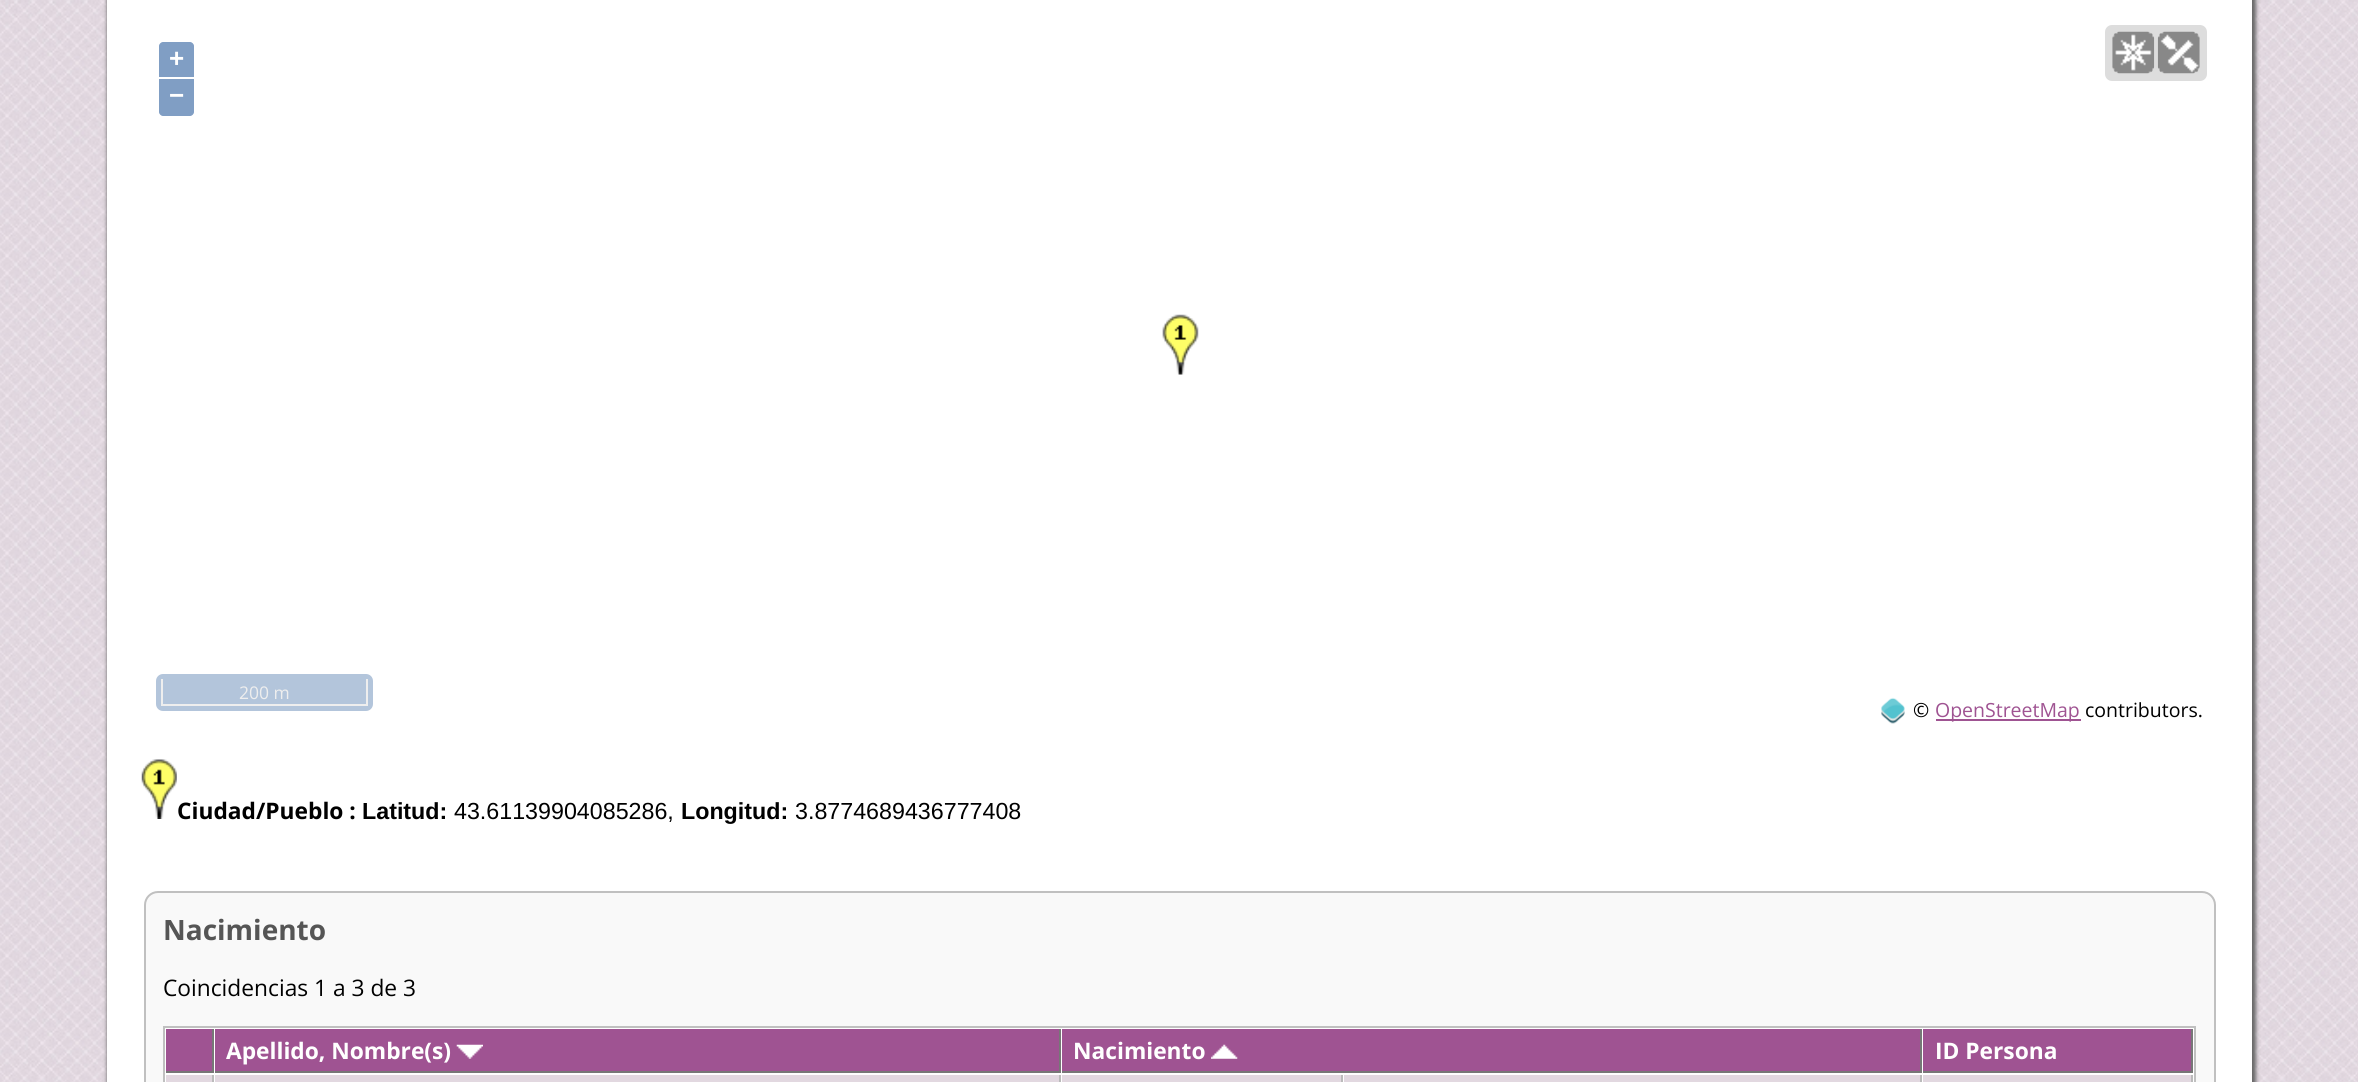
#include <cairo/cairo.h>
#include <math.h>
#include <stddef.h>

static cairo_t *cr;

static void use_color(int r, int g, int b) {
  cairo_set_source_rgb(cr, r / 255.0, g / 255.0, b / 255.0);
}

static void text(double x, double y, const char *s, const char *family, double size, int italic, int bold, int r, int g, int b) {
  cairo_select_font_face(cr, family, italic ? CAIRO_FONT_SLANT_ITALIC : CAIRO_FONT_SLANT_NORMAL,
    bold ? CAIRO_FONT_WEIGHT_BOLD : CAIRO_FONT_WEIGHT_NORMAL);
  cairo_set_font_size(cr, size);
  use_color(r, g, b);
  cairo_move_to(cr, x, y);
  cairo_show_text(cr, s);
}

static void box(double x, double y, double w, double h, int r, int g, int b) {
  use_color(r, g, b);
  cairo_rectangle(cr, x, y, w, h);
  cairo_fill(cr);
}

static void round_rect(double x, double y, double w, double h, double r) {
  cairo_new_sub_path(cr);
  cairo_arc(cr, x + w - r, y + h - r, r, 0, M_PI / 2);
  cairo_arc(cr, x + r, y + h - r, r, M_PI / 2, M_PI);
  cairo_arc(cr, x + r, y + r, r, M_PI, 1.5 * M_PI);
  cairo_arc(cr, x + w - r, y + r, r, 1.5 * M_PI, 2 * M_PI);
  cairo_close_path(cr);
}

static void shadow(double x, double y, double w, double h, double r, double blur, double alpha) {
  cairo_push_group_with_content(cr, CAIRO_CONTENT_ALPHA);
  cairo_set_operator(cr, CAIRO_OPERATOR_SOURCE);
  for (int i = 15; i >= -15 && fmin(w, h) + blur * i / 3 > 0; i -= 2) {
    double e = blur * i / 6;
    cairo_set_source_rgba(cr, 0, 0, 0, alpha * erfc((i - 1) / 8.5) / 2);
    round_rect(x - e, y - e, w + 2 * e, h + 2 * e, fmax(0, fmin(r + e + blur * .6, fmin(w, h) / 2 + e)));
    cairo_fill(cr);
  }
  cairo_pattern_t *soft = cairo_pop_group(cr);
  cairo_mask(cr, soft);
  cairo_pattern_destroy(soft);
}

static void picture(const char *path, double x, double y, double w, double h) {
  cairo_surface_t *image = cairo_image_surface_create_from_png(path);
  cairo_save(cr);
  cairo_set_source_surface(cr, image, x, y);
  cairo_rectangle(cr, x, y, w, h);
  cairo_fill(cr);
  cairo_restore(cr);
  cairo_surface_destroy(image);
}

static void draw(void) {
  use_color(255, 255, 255);
  cairo_paint(cr);
  picture("img_01.png", 0, 0, 2358, 1082);
  use_color(102, 102, 102);
  shadow(107, -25, 2149, 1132, 19, 2, 1);
  box(107, 0, 2145, 1082, 255, 255, 255);
  use_color(221, 221, 221);
  round_rect(2105, 25, 102, 56, 7);
  cairo_fill(cr);
  picture("img_02.png", 2112, 31, 43, 43);
  picture("img_03.png", 2157, 31, 43, 43);
  use_color(128, 158, 196);
  cairo_new_path(cr);
  cairo_move_to(cr, 163, 42);
  cairo_line_to(cr, 190, 42);
  cairo_curve_to(cr, 192, 42, 194, 44, 194, 46);
  cairo_line_to(cr, 194, 77);
  cairo_line_to(cr, 159, 77);
  cairo_line_to(cr, 159, 46);
  cairo_curve_to(cr, 159, 44, 161, 42, 163, 42);
  cairo_close_path(cr);
  cairo_fill(cr);
  cairo_new_path(cr);
  cairo_move_to(cr, 159, 79);
  cairo_line_to(cr, 194, 79);
  cairo_line_to(cr, 194, 112);
  cairo_curve_to(cr, 194, 114, 192, 116, 190, 116);
  cairo_line_to(cr, 163, 116);
  cairo_curve_to(cr, 161, 116, 159, 114, 159, 112);
  cairo_close_path(cr);
  cairo_fill(cr);
  use_color(179, 197, 219);
  round_rect(156, 674, 217, 37, 7);
  cairo_fill(cr);
  box(366, 679, 2, 26, 238, 238, 238);
  box(161, 704, 207, 2, 238, 238, 238);
  box(161, 679, 2, 26, 238, 238, 238);
  picture("img_04.png", 1881, 697, 24, 27);
  box(1936, 719, 145, 2, 159, 83, 146);
  picture("img_05.png", 1162, 314, 37, 61);
  picture("img_06.png", 141, 759, 36, 60);
  use_color(249, 249, 249);
  round_rect(145, 892, 2070, 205, 13);
  cairo_fill_preserve(cr);
  use_color(192, 192, 192);
  cairo_stroke(cr);
  use_color(255, 255, 255);
  cairo_rectangle(cr, 164, 1027, 2031, 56);
  cairo_fill_preserve(cr);
  use_color(192, 192, 192);
  cairo_stroke(cr);
  box(166, 1029, 46, 42, 159, 83, 146);
  box(212, 1029, 2, 44, 119, 119, 119);
  box(166, 1071, 48, 2, 119, 119, 119);
  box(215, 1029, 844, 42, 159, 83, 146);
  box(1059, 1029, 2, 44, 119, 119, 119);
  box(215, 1071, 846, 2, 119, 119, 119);
  picture("img_07.png", 456, 1044, 27, 15);
  box(1062, 1029, 858, 42, 159, 83, 146);
  box(1920, 1029, 2, 44, 119, 119, 119);
  box(1062, 1071, 860, 2, 119, 119, 119);
  picture("img_08.png", 1211, 1044, 27, 15);
  box(1923, 1029, 268, 42, 159, 83, 146);
  box(2191, 1029, 2, 44, 119, 119, 119);
  box(1923, 1071, 270, 2, 119, 119, 119);
  box(166, 1075, 48, 7, 226, 216, 224);
  box(212, 1075, 2, 7, 187, 187, 187);
  box(215, 1075, 846, 7, 226, 216, 224);
  box(1059, 1075, 2, 7, 187, 187, 187);
  box(1062, 1075, 280, 7, 226, 216, 224);
  box(1341, 1075, 2, 7, 187, 187, 187);
  box(1344, 1075, 578, 7, 226, 216, 224);
  box(1920, 1075, 2, 7, 187, 187, 187);
  box(1923, 1075, 270, 7, 226, 216, 224);
  box(2191, 1075, 2, 7, 187, 187, 187);
  text(169, 67, "+", "Liberation Sans", 26, 0, 1, 255, 255, 255);
  text(169, 104, "−", "Liberation Sans", 26, 0, 1, 255, 255, 255);
  text(239, 699, "200 m", "Open Sans", 17.5, 0, 0, 238, 238, 238);
  text(1913, 717, "©", "Open Sans", 19.5, 0, 0, 0, 0, 0);
  text(1935, 717, "OpenStreetMap", "Open Sans", 19.5, 0, 0, 159, 83, 146);
  text(2085, 717, "contributors.", "Open Sans", 19.5, 0, 0, 0, 0, 0);
  text(177, 819, "Ciudad/Pueblo :", "Open Sans", 22.75, 0, 1, 0, 0, 0);
  text(362, 819, "Latitud:", "Liberation Sans", 23.25, 0, 1, 0, 0, 0);
  text(454, 819, "43.61139904085286,", "Liberation Sans", 23.25, 0, 0, 0, 0, 0);
  text(681, 819, "Longitud:", "Liberation Sans", 23.25, 0, 1, 0, 0, 0);
  text(795, 819, "3.8774689436777408", "Liberation Sans", 23.25, 0, 0, 0, 0, 0);
  text(163, 940, "Nacimiento", "Open Sans", 28, 0, 1, 85, 85, 85);
  text(163, 996, "Coincidencias 1 a 3 de 3", "Open Sans", 22.75, 0, 0, 0, 0, 0);
  text(226, 1059, "Apellido, Nombre(s)", "Open Sans", 22.75, 0, 1, 255, 255, 255);
  text(1073, 1059, "Nacimiento", "Open Sans", 22.75, 0, 1, 255, 255, 255);
  text(1935, 1059, "ID Persona", "Open Sans", 22.75, 0, 1, 255, 255, 255);
}

int main(void) {
  cairo_surface_t *surface = cairo_image_surface_create(CAIRO_FORMAT_RGB24, 2358, 1082);
  cr = cairo_create(surface);
  cairo_font_options_t *options = cairo_font_options_create();
  cairo_font_options_set_hint_metrics(options, CAIRO_HINT_METRICS_OFF);
  cairo_font_options_set_hint_style(options, CAIRO_HINT_STYLE_NONE);
  cairo_set_font_options(cr, options);
  cairo_set_miter_limit(cr, 4);
  draw();
  cairo_surface_write_to_png(surface, "out.png");
  cairo_font_options_destroy(options);
  cairo_destroy(cr);
  cairo_surface_destroy(surface);
  return 0;
}
